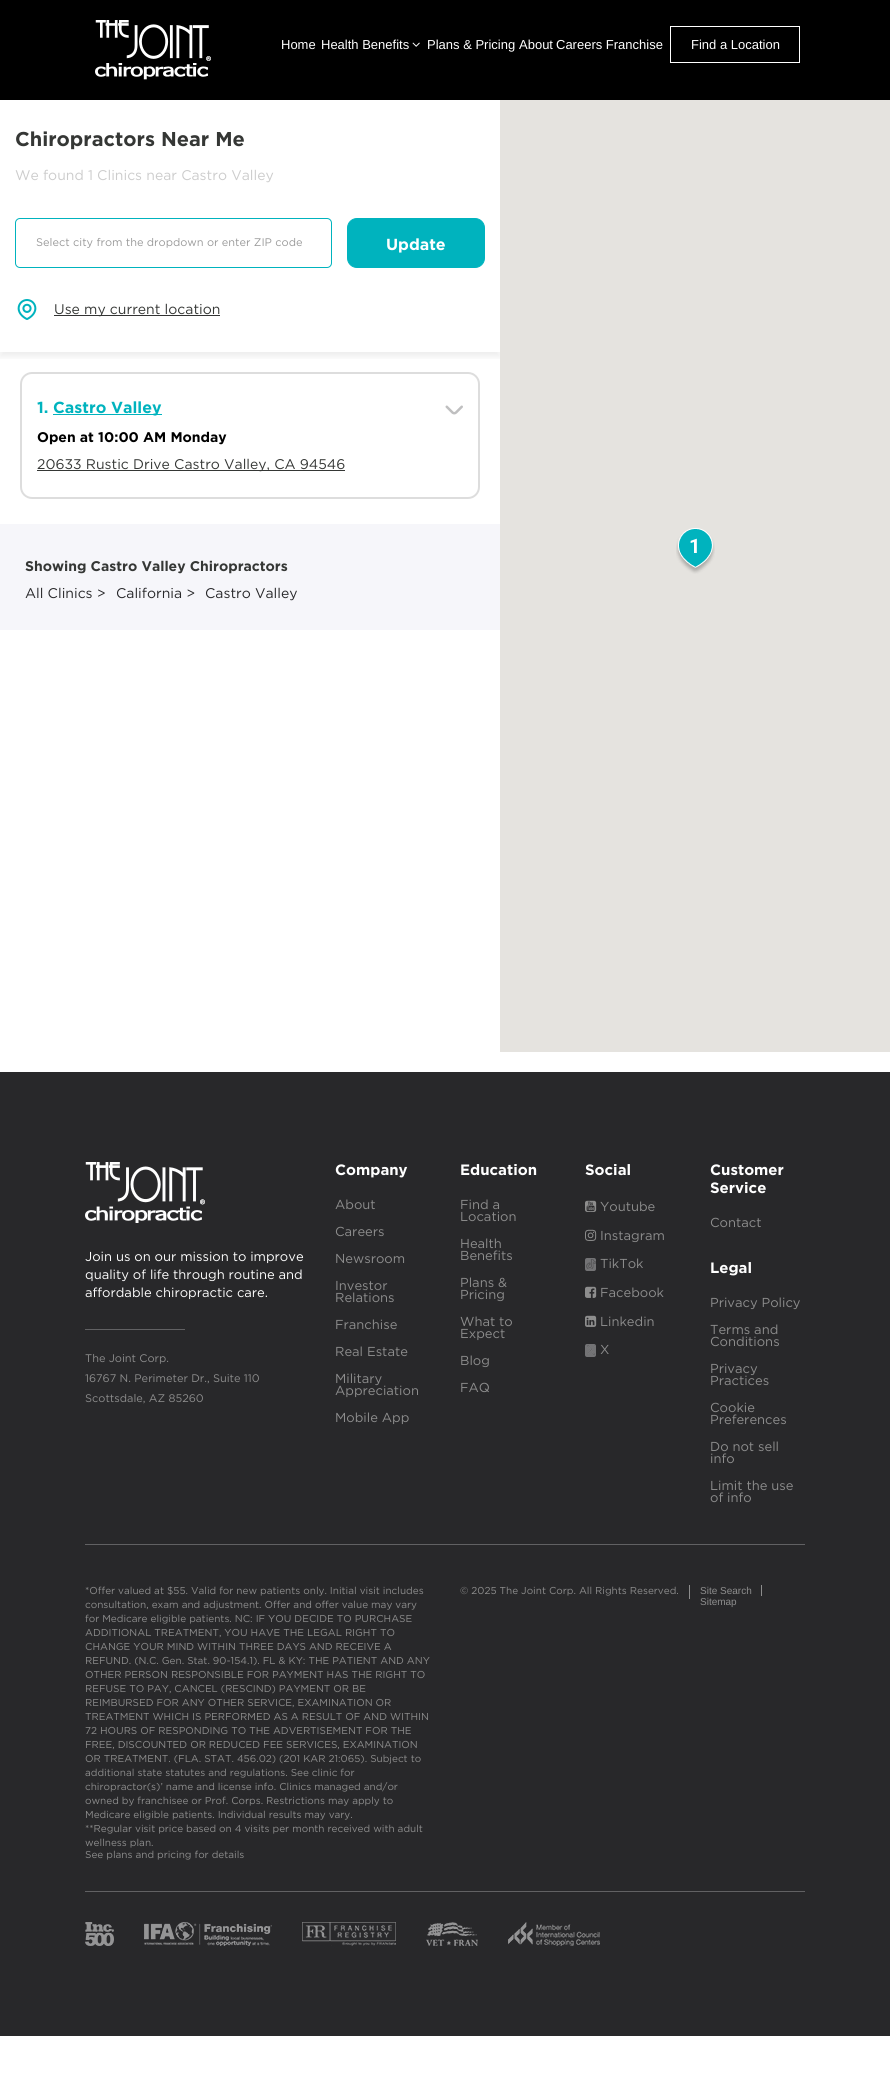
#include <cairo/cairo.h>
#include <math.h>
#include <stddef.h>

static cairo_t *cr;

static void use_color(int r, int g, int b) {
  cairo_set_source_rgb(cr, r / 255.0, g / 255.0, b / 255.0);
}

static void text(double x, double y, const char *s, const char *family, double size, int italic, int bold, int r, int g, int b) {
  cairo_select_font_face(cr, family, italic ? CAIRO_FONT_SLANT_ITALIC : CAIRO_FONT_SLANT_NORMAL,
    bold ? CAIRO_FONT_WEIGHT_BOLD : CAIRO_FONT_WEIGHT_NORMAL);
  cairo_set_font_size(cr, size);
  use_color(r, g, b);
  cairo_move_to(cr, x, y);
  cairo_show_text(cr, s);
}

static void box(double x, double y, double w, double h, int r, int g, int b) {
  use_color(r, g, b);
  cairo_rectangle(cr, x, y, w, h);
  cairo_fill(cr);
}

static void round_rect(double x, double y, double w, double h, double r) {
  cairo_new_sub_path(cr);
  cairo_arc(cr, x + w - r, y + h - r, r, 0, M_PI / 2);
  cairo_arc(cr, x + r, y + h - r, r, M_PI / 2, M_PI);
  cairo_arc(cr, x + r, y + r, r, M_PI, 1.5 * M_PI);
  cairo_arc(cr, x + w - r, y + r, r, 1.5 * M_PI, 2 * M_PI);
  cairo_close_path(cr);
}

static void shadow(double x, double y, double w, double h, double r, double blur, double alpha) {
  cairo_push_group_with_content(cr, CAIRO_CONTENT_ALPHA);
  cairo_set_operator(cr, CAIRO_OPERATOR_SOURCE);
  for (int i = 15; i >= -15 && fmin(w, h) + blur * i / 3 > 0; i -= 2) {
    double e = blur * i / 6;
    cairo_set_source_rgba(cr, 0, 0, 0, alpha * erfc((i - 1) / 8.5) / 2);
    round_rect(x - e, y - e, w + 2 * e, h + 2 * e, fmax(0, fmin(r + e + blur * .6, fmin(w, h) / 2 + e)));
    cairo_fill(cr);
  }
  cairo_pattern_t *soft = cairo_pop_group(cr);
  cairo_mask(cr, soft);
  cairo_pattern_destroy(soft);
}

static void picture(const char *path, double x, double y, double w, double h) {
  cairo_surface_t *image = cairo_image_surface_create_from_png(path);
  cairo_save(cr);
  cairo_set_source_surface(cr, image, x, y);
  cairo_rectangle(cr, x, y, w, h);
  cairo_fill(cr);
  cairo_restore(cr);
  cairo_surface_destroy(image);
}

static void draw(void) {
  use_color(255, 255, 255);
  cairo_paint(cr);
  box(0, 0, 890, 100, 0, 0, 0);
  picture("img_01.png", 95, 20, 116, 60);
  picture("img_02.png", 412, 42, 8, 5);
  cairo_rectangle(cr, 670.5, 26.5, 129, 36);
  use_color(255, 255, 255);
  cairo_set_line_width(cr, 1);
  cairo_stroke(cr);
  cairo_save(cr);
  cairo_rectangle(cr, 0, 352, 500, 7);
  cairo_clip(cr);
  use_color(0, 0, 0);
  shadow(0, 105, 500, 252, 0, 3.5, 0.07);
  cairo_restore(cr);
  round_rect(15.5, 218.5, 316, 49, 4.5);
  use_color(0, 179, 190);
  cairo_stroke(cr);
  round_rect(347.5, 218.5, 137, 49, 9.5);
  cairo_fill_preserve(cr);
  cairo_stroke(cr);
  picture("img_03.png", 17, 299, 20, 21);
  box(54, 315, 166, 1, 51, 51, 51);
  round_rect(21, 373, 458, 125, 11);
  use_color(221, 221, 221);
  cairo_set_line_width(cr, 2);
  cairo_stroke(cr);
  box(53, 414, 109, 1, 0, 179, 190);
  picture("img_04.png", 445, 405, 18, 10);
  box(37, 470, 308, 1, 53, 55, 53);
  box(0, 524, 500, 106, 246, 246, 250);
  box(500, 100, 390, 952, 229, 227, 223);
  picture("img_05.png", 676, 528, 39, 46);
  box(0, 1072, 890, 964, 40, 40, 42);
  picture("img_06.png", 85, 1162, 120, 61);
  box(85, 1329, 100, 1, 97, 97, 99);
  picture("img_07.png", 585, 1200, 12, 12);
  picture("img_08.png", 585, 1229, 12, 12);
  use_color(115, 115, 117);
  round_rect(585, 1258, 11, 13, 2);
  cairo_fill(cr);
  picture("img_09.png", 586, 1259, 10, 10);
  picture("img_10.png", 585, 1286, 12, 12);
  picture("img_11.png", 585, 1315, 12, 12);
  round_rect(585, 1344, 11, 13, 2);
  cairo_fill(cr);
  picture("img_12.png", 587, 1345, 8, 10);
  box(85, 1544, 720, 1, 97, 97, 99);
  box(689, 1585, 1, 14, 141, 141, 141);
  box(761, 1585, 1, 11, 141, 141, 141);
  box(85, 1891, 720, 1, 97, 97, 99);
  picture("img_13.png", 85, 1922, 29, 24);
  picture("img_14.png", 144, 1922, 128, 24);
  picture("img_15.png", 302, 1922, 94, 24);
  picture("img_16.png", 426, 1922, 52, 24);
  picture("img_17.png", 508, 1922, 92, 24);
  text(281, 49, "Home", "Liberation Sans", 13, 0, 0, 255, 255, 255);
  text(321, 49, "Health Benefits", "Liberation Sans", 13, 0, 0, 255, 255, 255);
  text(427, 49, "Plans & Pricing", "Liberation Sans", 13, 0, 0, 255, 255, 255);
  text(519, 49, "About", "Liberation Sans", 13, 0, 0, 255, 255, 255);
  text(556, 49, "Careers Franchise", "Liberation Sans", 13, 0, 0, 255, 255, 255);
  text(691, 49, "Find a Location", "Liberation Sans", 13, 0, 0, 255, 255, 255);
  text(15, 146, "Chiropractors Near Me", "Gotham", 20, 0, 1, 53, 55, 53);
  text(15, 180, "We found 1 Clinics near Castro Valley", "Gotham", 14, 0, 0, 204, 204, 204);
  text(36, 246, "Select city from the dropdown or enter ZIP code", "Gotham", 11, 0, 0, 153, 153, 153);
  text(386, 250, "Update", "Gotham", 16, 0, 1, 255, 255, 255);
  text(54, 314, "Use my current location", "Gotham", 14, 0, 0, 53, 55, 53);
  text(37, 413, "1.", "Gotham", 16, 0, 1, 0, 179, 190);
  text(53, 413, "Castro Valley", "Gotham", 16, 0, 1, 0, 179, 190);
  text(37, 442, "Open at 10:00 AM Monday", "Gotham", 14, 0, 1, 0, 0, 0);
  text(37, 469, "20633 Rustic Drive Castro Valley, CA 94546", "Gotham", 14, 0, 0, 53, 55, 53);
  text(25, 571, "Showing Castro Valley Chiropractors", "Gotham", 14, 0, 1, 53, 55, 53);
  text(25, 598, "All Clinics >", "Gotham", 14, 0, 0, 40, 40, 42);
  text(116, 598, "California >", "Gotham", 14, 0, 0, 40, 40, 42);
  text(205, 598, "Castro Valley", "Gotham", 14, 0, 0, 40, 40, 42);
  text(689, 553, "1", "Roboto", 20, 0, 1, 255, 255, 255);
  text(85, 1261, "Join us on our mission to improve", "Gotham", 13, 0, 0, 255, 255, 255);
  text(85, 1279, "quality of life through routine and", "Gotham", 13, 0, 0, 255, 255, 255);
  text(85, 1297, "affordable chiropractic care.", "Gotham", 13, 0, 0, 255, 255, 255);
  text(85, 1362, "The Joint Corp.", "Gotham", 11, 0, 0, 141, 141, 141);
  text(85, 1382, "16767 N. Perimeter Dr., Suite 110", "Gotham", 11, 0, 0, 141, 141, 141);
  text(85, 1402, "Scottsdale, AZ 85260", "Gotham", 11, 0, 0, 141, 141, 141);
  text(335, 1175, "Company", "Gotham", 15, 0, 1, 255, 255, 255);
  text(335, 1209, "About", "Gotham", 13, 0, 0, 141, 141, 141);
  text(335, 1236, "Careers", "Gotham", 13, 0, 0, 141, 141, 141);
  text(335, 1263, "Newsroom", "Gotham", 13, 0, 0, 141, 141, 141);
  text(335, 1290, "Investor", "Gotham", 13, 0, 0, 141, 141, 141);
  text(335, 1302, "Relations", "Gotham", 13, 0, 0, 141, 141, 141);
  text(335, 1329, "Franchise", "Gotham", 13, 0, 0, 141, 141, 141);
  text(335, 1356, "Real Estate", "Gotham", 13, 0, 0, 141, 141, 141);
  text(335, 1383, "Military", "Gotham", 13, 0, 0, 141, 141, 141);
  text(335, 1395, "Appreciation", "Gotham", 13, 0, 0, 141, 141, 141);
  text(335, 1422, "Mobile App", "Gotham", 13, 0, 0, 141, 141, 141);
  text(460, 1175, "Education", "Gotham", 15, 0, 1, 255, 255, 255);
  text(460, 1209, "Find a", "Gotham", 13, 0, 0, 141, 141, 141);
  text(460, 1221, "Location", "Gotham", 13, 0, 0, 141, 141, 141);
  text(460, 1248, "Health", "Gotham", 13, 0, 0, 141, 141, 141);
  text(460, 1260, "Benefits", "Gotham", 13, 0, 0, 141, 141, 141);
  text(460, 1287, "Plans &", "Gotham", 13, 0, 0, 141, 141, 141);
  text(460, 1299, "Pricing", "Gotham", 13, 0, 0, 141, 141, 141);
  text(460, 1326, "What to", "Gotham", 13, 0, 0, 141, 141, 141);
  text(460, 1338, "Expect", "Gotham", 13, 0, 0, 141, 141, 141);
  text(460, 1365, "Blog", "Gotham", 13, 0, 0, 141, 141, 141);
  text(460, 1392, "FAQ", "Gotham", 13, 0, 0, 141, 141, 141);
  text(585, 1175, "Social", "Gotham", 15, 0, 1, 255, 255, 255);
  text(600, 1211, "Youtube", "Gotham", 13, 0, 0, 141, 141, 141);
  text(600, 1240, "Instagram", "Gotham", 13, 0, 0, 141, 141, 141);
  text(600, 1268, "TikTok", "Gotham", 13, 0, 0, 141, 141, 141);
  text(600, 1297, "Facebook", "Gotham", 13, 0, 0, 141, 141, 141);
  text(600, 1326, "Linkedin", "Gotham", 13, 0, 0, 141, 141, 141);
  text(600, 1354, "X", "Gotham", 13, 0, 0, 141, 141, 141);
  text(710, 1175, "Customer", "Gotham", 15, 0, 1, 255, 255, 255);
  text(710, 1193, "Service", "Gotham", 15, 0, 1, 255, 255, 255);
  text(710, 1227, "Contact", "Gotham", 13, 0, 0, 141, 141, 141);
  text(710, 1273, "Legal", "Gotham", 15, 0, 1, 255, 255, 255);
  text(710, 1307, "Privacy Policy", "Gotham", 13, 0, 0, 141, 141, 141);
  text(710, 1334, "Terms and", "Gotham", 13, 0, 0, 141, 141, 141);
  text(710, 1346, "Conditions", "Gotham", 13, 0, 0, 141, 141, 141);
  text(710, 1373, "Privacy", "Gotham", 13, 0, 0, 141, 141, 141);
  text(710, 1385, "Practices", "Gotham", 13, 0, 0, 141, 141, 141);
  text(710, 1412, "Cookie", "Gotham", 13, 0, 0, 141, 141, 141);
  text(710, 1424, "Preferences", "Gotham", 13, 0, 0, 141, 141, 141);
  text(710, 1451, "Do not sell", "Gotham", 13, 0, 0, 141, 141, 141);
  text(710, 1463, "info", "Gotham", 13, 0, 0, 141, 141, 141);
  text(710, 1490, "Limit the use", "Gotham", 13, 0, 0, 141, 141, 141);
  text(710, 1502, "of info", "Gotham", 13, 0, 0, 141, 141, 141);
  text(85, 1594, "*Offer valued at $55. Valid for new patients only. Initial visit includes", "Gotham", 10, 0, 0, 141, 141, 141);
  text(85, 1608, "consultation, exam and adjustment. Offer and offer value may vary", "Gotham", 10, 0, 0, 141, 141, 141);
  text(85, 1622, "for Medicare eligible patients. NC: IF YOU DECIDE TO PURCHASE", "Gotham", 10, 0, 0, 141, 141, 141);
  text(85, 1636, "ADDITIONAL TREATMENT, YOU HAVE THE LEGAL RIGHT TO", "Gotham", 10, 0, 0, 141, 141, 141);
  text(85, 1650, "CHANGE YOUR MIND WITHIN THREE DAYS AND RECEIVE A", "Gotham", 10, 0, 0, 141, 141, 141);
  text(85, 1664, "REFUND. (N.C. Gen. Stat. 90-154.1). FL & KY: THE PATIENT AND ANY", "Gotham", 10, 0, 0, 141, 141, 141);
  text(85, 1678, "OTHER PERSON RESPONSIBLE FOR PAYMENT HAS THE RIGHT TO", "Gotham", 10, 0, 0, 141, 141, 141);
  text(85, 1692, "REFUSE TO PAY, CANCEL (RESCIND) PAYMENT OR BE", "Gotham", 10, 0, 0, 141, 141, 141);
  text(85, 1706, "REIMBURSED FOR ANY OTHER SERVICE, EXAMINATION OR", "Gotham", 10, 0, 0, 141, 141, 141);
  text(85, 1720, "TREATMENT WHICH IS PERFORMED AS A RESULT OF AND WITHIN", "Gotham", 10, 0, 0, 141, 141, 141);
  text(85, 1734, "72 HOURS OF RESPONDING TO THE ADVERTISEMENT FOR THE", "Gotham", 10, 0, 0, 141, 141, 141);
  text(85, 1748, "FREE, DISCOUNTED OR REDUCED FEE SERVICES, EXAMINATION", "Gotham", 10, 0, 0, 141, 141, 141);
  text(85, 1762, "OR TREATMENT. (FLA. STAT. 456.02) (201 KAR 21:065). Subject to", "Gotham", 10, 0, 0, 141, 141, 141);
  text(85, 1776, "additional state statutes and regulations. See clinic for", "Gotham", 10, 0, 0, 141, 141, 141);
  text(85, 1790, "chiropractor(s)’ name and license info. Clinics managed and/or", "Gotham", 10, 0, 0, 141, 141, 141);
  text(85, 1804, "owned by franchisee or Prof. Corps. Restrictions may apply to", "Gotham", 10, 0, 0, 141, 141, 141);
  text(85, 1818, "Medicare eligible patients. Individual results may vary.", "Gotham", 10, 0, 0, 141, 141, 141);
  text(85, 1832, "**Regular visit price based on 4 visits per month received with adult", "Gotham", 10, 0, 0, 141, 141, 141);
  text(85, 1846, "wellness plan.", "Gotham", 10, 0, 0, 141, 141, 141);
  text(85, 1858, "See plans and pricing for details", "Gotham", 10, 0, 0, 141, 141, 141);
  text(460, 1594, "© 2025 The Joint Corp. All Rights Reserved.", "Gotham", 10, 0, 0, 141, 141, 141);
  text(700, 1594, "Site Search", "Liberation Sans", 10, 0, 0, 141, 141, 141);
  text(700, 1605, "Sitemap", "Liberation Sans", 10, 0, 0, 141, 141, 141);
}

int main(void) {
  cairo_surface_t *surface = cairo_image_surface_create(CAIRO_FORMAT_RGB24, 890, 2095);
  cr = cairo_create(surface);
  cairo_font_options_t *options = cairo_font_options_create();
  cairo_font_options_set_hint_metrics(options, CAIRO_HINT_METRICS_OFF);
  cairo_font_options_set_hint_style(options, CAIRO_HINT_STYLE_NONE);
  cairo_set_font_options(cr, options);
  cairo_set_miter_limit(cr, 4);
  draw();
  cairo_surface_write_to_png(surface, "out.png");
  cairo_font_options_destroy(options);
  cairo_destroy(cr);
  cairo_surface_destroy(surface);
  return 0;
}
